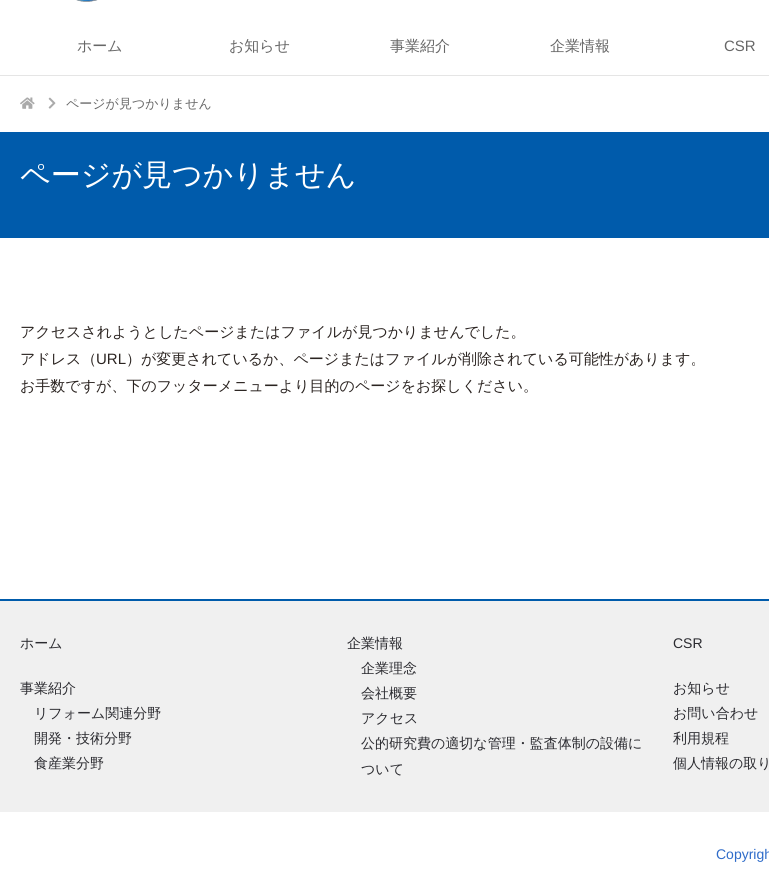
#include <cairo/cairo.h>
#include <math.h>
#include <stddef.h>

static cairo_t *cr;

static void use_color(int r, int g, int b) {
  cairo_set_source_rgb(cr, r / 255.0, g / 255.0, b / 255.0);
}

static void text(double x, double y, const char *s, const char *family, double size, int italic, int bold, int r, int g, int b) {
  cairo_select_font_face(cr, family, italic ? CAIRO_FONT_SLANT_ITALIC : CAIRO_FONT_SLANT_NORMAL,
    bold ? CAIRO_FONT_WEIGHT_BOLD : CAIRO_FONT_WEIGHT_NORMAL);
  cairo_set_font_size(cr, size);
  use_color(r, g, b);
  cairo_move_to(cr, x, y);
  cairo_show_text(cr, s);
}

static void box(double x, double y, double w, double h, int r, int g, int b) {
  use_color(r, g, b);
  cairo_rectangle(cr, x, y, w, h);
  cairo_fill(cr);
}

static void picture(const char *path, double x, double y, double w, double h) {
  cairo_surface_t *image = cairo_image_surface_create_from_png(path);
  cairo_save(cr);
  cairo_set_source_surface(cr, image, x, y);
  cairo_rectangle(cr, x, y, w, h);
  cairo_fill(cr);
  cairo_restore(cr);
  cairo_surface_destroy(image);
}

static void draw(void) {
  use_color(255, 255, 255);
  cairo_paint(cr);
  picture("img_01.png", 76, 0, 22, 2);
  box(0, 75, 769, 1, 229, 229, 229);
  picture("img_02.png", 20, 97, 15, 12);
  picture("img_03.png", 48, 97, 8, 12);
  box(0, 132, 769, 106, 0, 91, 171);
  box(0, 601, 769, 211, 240, 240, 240);
  box(0, 599, 769, 2, 0, 91, 171);
  text(77, 51, "ホーム", "WenQuanYi Zen Hei Medium", 15, 0, 0, 103, 103, 103);
  text(229, 51, "お知らせ", "WenQuanYi Zen Hei Medium", 15, 0, 0, 103, 103, 103);
  text(390, 51, "事業紹介", "WenQuanYi Zen Hei Medium", 15, 0, 0, 103, 103, 103);
  text(550, 51, "企業情報", "WenQuanYi Zen Hei Medium", 15, 0, 0, 103, 103, 103);
  text(724, 51, "CSR", "Liberation Sans", 15, 0, 0, 103, 103, 103);
  text(66, 108, "ページが見つかりません", "WenQuanYi Zen Hei Medium", 13, 0, 0, 103, 103, 103);
  text(20, 185, "ページが見つかりません", "WenQuanYi Zen Hei Medium", 30, 0, 0, 255, 255, 255);
  text(20, 337, "アクセスされようとしたページまたはファイルが見つかりませんでした。", "WenQuanYi Zen Hei Medium", 15, 0, 0, 43, 36, 33);
  text(20, 364, "アドレス（", "WenQuanYi Zen Hei Medium", 15, 0, 0, 43, 36, 33);
  text(96, 364, "URL", "Liberation Sans", 15, 0, 0, 43, 36, 33);
  text(126, 364, "）が変更されているか、ページまたはファイルが削除されている可能性があります。", "WenQuanYi Zen Hei Medium", 15, 0, 0, 43, 36, 33);
  text(20, 391, "お手数ですが、下のフッターメニューより目的のページをお探しください。", "WenQuanYi Zen Hei Medium", 15, 0, 0, 43, 36, 33);
  text(20, 648, "ホーム", "WenQuanYi Zen Hei Medium", 14, 0, 0, 43, 43, 48);
  text(20, 693, "事業紹介", "WenQuanYi Zen Hei Medium", 14, 0, 0, 43, 43, 48);
  text(34, 718, "リフォーム関連分野", "WenQuanYi Zen Hei Medium", 14, 0, 0, 43, 43, 48);
  text(34, 743, "開発・技術分野", "WenQuanYi Zen Hei Medium", 14, 0, 0, 43, 43, 48);
  text(34, 768, "食産業分野", "WenQuanYi Zen Hei Medium", 14, 0, 0, 43, 43, 48);
  text(347, 648, "企業情報", "WenQuanYi Zen Hei Medium", 14, 0, 0, 43, 43, 48);
  text(361, 673, "企業理念", "WenQuanYi Zen Hei Medium", 14, 0, 0, 43, 43, 48);
  text(361, 698, "会社概要", "WenQuanYi Zen Hei Medium", 14, 0, 0, 43, 43, 48);
  text(361, 723, "アクセス", "WenQuanYi Zen Hei Medium", 14, 0, 0, 43, 43, 48);
  text(361, 748, "公的研究費の適切な管理・監査体制の設備に", "WenQuanYi Zen Hei Medium", 14, 0, 0, 43, 43, 48);
  text(361, 774, "ついて", "WenQuanYi Zen Hei Medium", 14, 0, 0, 43, 43, 48);
  text(673, 648, "CSR", "Liberation Sans", 14, 0, 0, 43, 43, 48);
  text(673, 693, "お知らせ", "WenQuanYi Zen Hei Medium", 14, 0, 0, 43, 43, 48);
  text(673, 718, "お問い合わせ", "WenQuanYi Zen Hei Medium", 14, 0, 0, 43, 43, 48);
  text(673, 743, "利用規程", "WenQuanYi Zen Hei Medium", 14, 0, 0, 43, 43, 48);
  text(673, 768, "個人情報の取り", "WenQuanYi Zen Hei Medium", 14, 0, 0, 43, 43, 48);
  text(716, 859, "Copyrigh", "Liberation Sans", 14, 0, 0, 47, 108, 201);
}

int main(void) {
  cairo_surface_t *surface = cairo_image_surface_create(CAIRO_FORMAT_RGB24, 769, 890);
  cr = cairo_create(surface);
  cairo_font_options_t *options = cairo_font_options_create();
  cairo_font_options_set_hint_metrics(options, CAIRO_HINT_METRICS_OFF);
  cairo_font_options_set_hint_style(options, CAIRO_HINT_STYLE_NONE);
  cairo_set_font_options(cr, options);
  cairo_set_miter_limit(cr, 4);
  draw();
  cairo_surface_write_to_png(surface, "out.png");
  cairo_font_options_destroy(options);
  cairo_destroy(cr);
  cairo_surface_destroy(surface);
  return 0;
}
